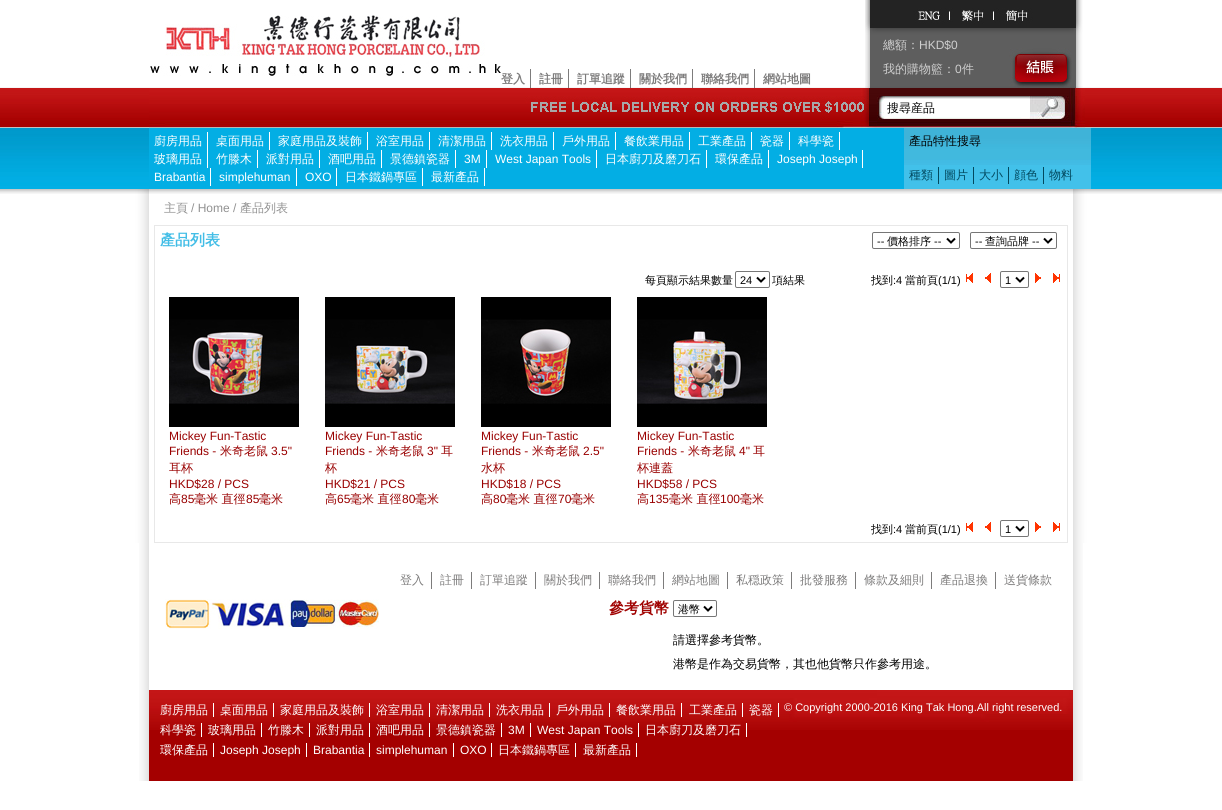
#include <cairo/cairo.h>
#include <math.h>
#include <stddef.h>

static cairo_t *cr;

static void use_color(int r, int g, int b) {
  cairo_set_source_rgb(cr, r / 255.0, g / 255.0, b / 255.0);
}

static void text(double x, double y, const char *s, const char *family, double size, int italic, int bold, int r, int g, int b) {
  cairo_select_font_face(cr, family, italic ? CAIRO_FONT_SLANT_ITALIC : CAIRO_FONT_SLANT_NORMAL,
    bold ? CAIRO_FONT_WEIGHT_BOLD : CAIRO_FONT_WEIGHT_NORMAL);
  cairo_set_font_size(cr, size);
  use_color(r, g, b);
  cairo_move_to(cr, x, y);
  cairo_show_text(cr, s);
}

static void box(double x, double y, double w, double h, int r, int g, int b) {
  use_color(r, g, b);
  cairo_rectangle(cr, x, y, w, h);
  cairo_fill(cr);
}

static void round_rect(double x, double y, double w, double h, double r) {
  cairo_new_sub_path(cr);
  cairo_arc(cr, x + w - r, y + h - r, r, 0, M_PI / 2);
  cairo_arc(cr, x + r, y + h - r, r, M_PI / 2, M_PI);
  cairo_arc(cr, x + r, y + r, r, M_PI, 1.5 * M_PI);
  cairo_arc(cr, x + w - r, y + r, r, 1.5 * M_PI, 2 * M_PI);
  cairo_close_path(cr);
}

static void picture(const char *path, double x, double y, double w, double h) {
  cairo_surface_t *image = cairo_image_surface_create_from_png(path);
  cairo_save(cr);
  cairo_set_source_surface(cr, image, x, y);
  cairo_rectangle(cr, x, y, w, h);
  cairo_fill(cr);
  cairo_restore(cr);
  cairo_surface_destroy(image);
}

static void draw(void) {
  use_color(255, 255, 255);
  cairo_paint(cr);
  picture("img_01.png", 0, 87, 1222, 107);
  picture("img_02.png", 150, 15, 351, 61);
  picture("img_03.png", 865, 0, 218, 88);
  box(530, 69, 1, 19, 125, 124, 124);
  box(568, 69, 1, 19, 125, 124, 124);
  box(630, 69, 1, 19, 125, 124, 124);
  box(692, 69, 1, 19, 125, 124, 124);
  box(754, 69, 1, 19, 125, 124, 124);
  picture("img_04.png", 149, 88, 936, 40);
  box(884, 99, 146, 18, 255, 255, 255);
  box(149, 128, 755, 60, 3, 174, 228);
  box(269, 132, 1, 18, 255, 255, 255);
  box(367, 132, 1, 18, 255, 255, 255);
  box(429, 132, 1, 18, 255, 255, 255);
  box(491, 132, 1, 18, 255, 255, 255);
  box(553, 132, 1, 18, 255, 255, 255);
  box(615, 132, 1, 18, 255, 255, 255);
  box(689, 132, 1, 18, 255, 255, 255);
  box(751, 132, 1, 18, 255, 255, 255);
  box(789, 132, 1, 18, 255, 255, 255);
  box(839, 132, 1, 18, 255, 255, 255);
  box(207, 132, 1, 36, 255, 255, 255);
  box(257, 150, 1, 18, 255, 255, 255);
  box(319, 150, 1, 18, 255, 255, 255);
  box(381, 150, 1, 18, 255, 255, 255);
  box(455, 150, 1, 18, 255, 255, 255);
  box(486, 150, 1, 18, 255, 255, 255);
  box(596, 150, 1, 18, 255, 255, 255);
  box(706, 150, 1, 18, 255, 255, 255);
  box(768, 150, 1, 18, 255, 255, 255);
  box(862, 150, 1, 18, 255, 255, 255);
  box(210, 168, 1, 18, 255, 255, 255);
  box(296, 168, 1, 18, 255, 255, 255);
  box(336, 168, 1, 18, 255, 255, 255);
  box(422, 168, 1, 18, 255, 255, 255);
  box(484, 168, 1, 18, 255, 255, 255);
  box(904, 165, 187, 24, 66, 193, 234);
  picture("img_05.png", 904, 128, 187, 37);
  box(938, 167, 1, 17, 2, 73, 95);
  box(973, 167, 1, 17, 2, 73, 95);
  box(1008, 167, 1, 17, 2, 73, 95);
  box(1043, 167, 1, 17, 2, 73, 95);
  picture("img_06.png", 131, 194, 960, 349);
  picture("img_07.png", 131, 189, 960, 5);
  cairo_rectangle(cr, 154.5, 225.5, 913, 317);
  use_color(232, 232, 232);
  cairo_set_line_width(cr, 1);
  cairo_stroke(cr);
  round_rect(872.5, 232.5, 87, 16, 1.5);
  use_color(118, 118, 118);
  cairo_stroke(cr);
  cairo_new_path(cr);
  cairo_move_to(cr, 947, 238.5);
  cairo_line_to(cr, 951, 242.5);
  cairo_line_to(cr, 955, 238.5);
  use_color(0, 0, 0);
  cairo_set_line_width(cr, 2);
  cairo_stroke(cr);
  round_rect(970.5, 232.5, 86, 16, 1.5);
  use_color(118, 118, 118);
  cairo_set_line_width(cr, 1);
  cairo_stroke(cr);
  cairo_new_path(cr);
  cairo_move_to(cr, 1044, 238.5);
  cairo_line_to(cr, 1048, 242.5);
  cairo_line_to(cr, 1052, 238.5);
  use_color(0, 0, 0);
  cairo_set_line_width(cr, 2);
  cairo_stroke(cr);
  round_rect(735.5, 271.5, 34, 16, 1.5);
  use_color(118, 118, 118);
  cairo_set_line_width(cr, 1);
  cairo_stroke(cr);
  cairo_new_path(cr);
  cairo_move_to(cr, 757, 277.5);
  cairo_line_to(cr, 761, 281.5);
  cairo_line_to(cr, 765, 277.5);
  use_color(0, 0, 0);
  cairo_set_line_width(cr, 2);
  cairo_stroke(cr);
  picture("img_08.png", 966, 273, 7, 10);
  picture("img_09.png", 985, 273, 6, 10);
  round_rect(1000.5, 271.5, 28, 16, 1.5);
  use_color(118, 118, 118);
  cairo_set_line_width(cr, 1);
  cairo_stroke(cr);
  cairo_new_path(cr);
  cairo_move_to(cr, 1016, 277.5);
  cairo_line_to(cr, 1020, 281.5);
  cairo_line_to(cr, 1024, 277.5);
  use_color(0, 0, 0);
  cairo_set_line_width(cr, 2);
  cairo_stroke(cr);
  picture("img_10.png", 1035, 273, 6, 10);
  picture("img_11.png", 1053, 273, 7, 10);
  picture("img_12.png", 169, 297, 130, 130);
  picture("img_13.png", 325, 297, 130, 130);
  picture("img_14.png", 481, 297, 130, 130);
  picture("img_15.png", 637, 297, 130, 130);
  picture("img_08.png", 966, 522, 7, 10);
  picture("img_09.png", 985, 522, 6, 10);
  round_rect(1000.5, 520.5, 28, 16, 1.5);
  use_color(118, 118, 118);
  cairo_set_line_width(cr, 1);
  cairo_stroke(cr);
  cairo_new_path(cr);
  cairo_move_to(cr, 1016, 526.5);
  cairo_line_to(cr, 1020, 530.5);
  cairo_line_to(cr, 1024, 526.5);
  use_color(0, 0, 0);
  cairo_set_line_width(cr, 2);
  cairo_stroke(cr);
  picture("img_10.png", 1035, 522, 6, 10);
  picture("img_11.png", 1053, 522, 7, 10);
  picture("img_16.png", 139, 543, 944, 238);
  box(431, 572, 1, 17, 125, 124, 124);
  box(471, 572, 1, 17, 125, 124, 124);
  box(535, 572, 1, 17, 125, 124, 124);
  box(599, 572, 1, 17, 125, 124, 124);
  box(663, 572, 1, 17, 125, 124, 124);
  box(727, 572, 1, 17, 125, 124, 124);
  box(791, 572, 1, 17, 125, 124, 124);
  box(855, 572, 1, 17, 125, 124, 124);
  box(931, 572, 1, 17, 125, 124, 124);
  box(995, 572, 1, 17, 125, 124, 124);
  picture("img_17.png", 165, 599, 214, 30);
  round_rect(673.5, 600.5, 43, 16, 1.5);
  use_color(118, 118, 118);
  cairo_set_line_width(cr, 1);
  cairo_stroke(cr);
  cairo_new_path(cr);
  cairo_move_to(cr, 704, 606.5);
  cairo_line_to(cr, 708, 610.5);
  cairo_line_to(cr, 712, 606.5);
  use_color(0, 0, 0);
  cairo_set_line_width(cr, 2);
  cairo_stroke(cr);
  box(149, 730, 924, 51, 164, 0, 0);
  picture("img_18.png", 149, 690, 924, 40);
  box(213, 703, 1, 14, 255, 255, 255);
  box(273, 703, 1, 14, 255, 255, 255);
  box(369, 703, 1, 14, 255, 255, 255);
  box(429, 703, 1, 14, 255, 255, 255);
  box(489, 703, 1, 14, 255, 255, 255);
  box(549, 703, 1, 14, 255, 255, 255);
  box(609, 703, 1, 14, 255, 255, 255);
  box(681, 703, 1, 14, 255, 255, 255);
  box(742, 703, 1, 14, 255, 255, 255);
  box(778, 703, 1, 14, 255, 255, 255);
  box(201, 723, 1, 14, 255, 255, 255);
  box(261, 723, 1, 14, 255, 255, 255);
  box(309, 723, 1, 14, 255, 255, 255);
  box(369, 723, 1, 14, 255, 255, 255);
  box(429, 723, 1, 14, 255, 255, 255);
  box(501, 723, 1, 14, 255, 255, 255);
  box(530, 723, 1, 14, 255, 255, 255);
  box(638, 723, 1, 14, 255, 255, 255);
  box(746, 723, 1, 14, 255, 255, 255);
  box(213, 743, 1, 14, 255, 255, 255);
  box(306, 743, 1, 14, 255, 255, 255);
  box(369, 743, 1, 14, 255, 255, 255);
  box(453, 743, 1, 14, 255, 255, 255);
  box(491, 743, 1, 14, 255, 255, 255);
  box(575, 743, 1, 14, 255, 255, 255);
  box(636, 743, 1, 14, 255, 255, 255);
  text(883, 49, "總額：", "WenQuanYi Zen Hei Medium", 12, 0, 0, 206, 206, 206);
  text(919, 49, "HKD$0", "Liberation Sans", 12, 0, 0, 206, 206, 206);
  text(883, 73, "我的購物籃：", "WenQuanYi Zen Hei Medium", 12, 0, 0, 206, 206, 206);
  text(955, 73, "0", "Liberation Sans", 12, 0, 0, 206, 206, 206);
  text(962, 73, "件", "WenQuanYi Zen Hei Medium", 12, 0, 0, 206, 206, 206);
  text(501, 83, "登入", "WenQuanYi Zen Hei", 12, 0, 1, 125, 124, 124);
  text(539, 83, "註冊", "WenQuanYi Zen Hei", 12, 0, 1, 125, 124, 124);
  text(577, 83, "訂單追蹤", "WenQuanYi Zen Hei", 12, 0, 1, 125, 124, 124);
  text(639, 83, "關於我們", "WenQuanYi Zen Hei", 12, 0, 1, 125, 124, 124);
  text(701, 83, "聯絡我們", "WenQuanYi Zen Hei", 12, 0, 1, 125, 124, 124);
  text(763, 83, "網站地圖", "WenQuanYi Zen Hei", 12, 0, 1, 125, 124, 124);
  text(887, 112, "搜尋産品", "WenQuanYi Zen Hei Medium", 12, 0, 0, 0, 0, 0);
  text(154, 145, "廚房用品", "WenQuanYi Zen Hei Medium", 12, 0, 0, 255, 255, 255);
  text(216, 145, "桌面用品", "WenQuanYi Zen Hei Medium", 12, 0, 0, 255, 255, 255);
  text(278, 145, "家庭用品及裝飾", "WenQuanYi Zen Hei Medium", 12, 0, 0, 255, 255, 255);
  text(376, 145, "浴室用品", "WenQuanYi Zen Hei Medium", 12, 0, 0, 255, 255, 255);
  text(438, 145, "清潔用品", "WenQuanYi Zen Hei Medium", 12, 0, 0, 255, 255, 255);
  text(500, 145, "洗衣用品", "WenQuanYi Zen Hei Medium", 12, 0, 0, 255, 255, 255);
  text(562, 145, "戶外用品", "WenQuanYi Zen Hei Medium", 12, 0, 0, 255, 255, 255);
  text(624, 145, "餐飲業用品", "WenQuanYi Zen Hei Medium", 12, 0, 0, 255, 255, 255);
  text(698, 145, "工業產品", "WenQuanYi Zen Hei Medium", 12, 0, 0, 255, 255, 255);
  text(760, 145, "瓷器", "WenQuanYi Zen Hei Medium", 12, 0, 0, 255, 255, 255);
  text(798, 145, "科學瓷", "WenQuanYi Zen Hei Medium", 12, 0, 0, 255, 255, 255);
  text(154, 163, "玻璃用品", "WenQuanYi Zen Hei Medium", 12, 0, 0, 255, 255, 255);
  text(216, 163, "竹滕木", "WenQuanYi Zen Hei Medium", 12, 0, 0, 255, 255, 255);
  text(266, 163, "派對用品", "WenQuanYi Zen Hei Medium", 12, 0, 0, 255, 255, 255);
  text(328, 163, "酒吧用品", "WenQuanYi Zen Hei Medium", 12, 0, 0, 255, 255, 255);
  text(390, 163, "景德鎮瓷器", "WenQuanYi Zen Hei Medium", 12, 0, 0, 255, 255, 255);
  text(464, 163, "3M", "Liberation Sans", 12, 0, 0, 255, 255, 255);
  text(495, 163, "West Japan Tools", "Liberation Sans", 12, 0, 0, 255, 255, 255);
  text(605, 163, "日本廚刀及磨刀石", "WenQuanYi Zen Hei Medium", 12, 0, 0, 255, 255, 255);
  text(715, 163, "環保產品", "WenQuanYi Zen Hei Medium", 12, 0, 0, 255, 255, 255);
  text(777, 163, "Joseph Joseph", "Liberation Sans", 12, 0, 0, 255, 255, 255);
  text(154, 181, "Brabantia", "Liberation Sans", 12, 0, 0, 255, 255, 255);
  text(219, 181, "simplehuman", "Liberation Sans", 12, 0, 0, 255, 255, 255);
  text(305, 181, "OXO", "Liberation Sans", 12, 0, 0, 255, 255, 255);
  text(345, 181, "日本鐵鍋專區", "WenQuanYi Zen Hei Medium", 12, 0, 0, 255, 255, 255);
  text(431, 181, "最新產品", "WenQuanYi Zen Hei Medium", 12, 0, 0, 255, 255, 255);
  text(909, 145, "產品特性搜尋", "WenQuanYi Zen Hei Medium", 12, 0, 0, 0, 0, 0);
  text(909, 179, "種類", "WenQuanYi Zen Hei Medium", 12, 0, 0, 2, 73, 95);
  text(944, 179, "圖片", "WenQuanYi Zen Hei Medium", 12, 0, 0, 2, 73, 95);
  text(979, 179, "大小", "WenQuanYi Zen Hei Medium", 12, 0, 0, 2, 73, 95);
  text(1014, 179, "顔色", "WenQuanYi Zen Hei Medium", 12, 0, 0, 2, 73, 95);
  text(1049, 179, "物料", "WenQuanYi Zen Hei Medium", 12, 0, 0, 2, 73, 95);
  text(164, 212, "主頁", "WenQuanYi Zen Hei Medium", 12, 0, 0, 145, 145, 145);
  text(191, 212, "/ Home /", "Liberation Sans", 12, 0, 0, 145, 145, 145);
  text(240, 212, "產品列表", "WenQuanYi Zen Hei Medium", 12, 0, 0, 145, 145, 145);
  text(160, 245, "產品列表", "WenQuanYi Zen Hei", 15, 0, 1, 66, 189, 230);
  text(877, 245, "--", "Liberation Sans", 11, 0, 0, 0, 0, 0);
  text(887, 245, "價格排序", "WenQuanYi Zen Hei Medium", 11, 0, 0, 0, 0, 0);
  text(934, 245, "--", "Liberation Sans", 11, 0, 0, 0, 0, 0);
  text(975, 245, "--", "Liberation Sans", 11, 0, 0, 0, 0, 0);
  text(985, 245, "查詢品牌", "WenQuanYi Zen Hei Medium", 11, 0, 0, 0, 0, 0);
  text(1032, 245, "--", "Liberation Sans", 11, 0, 0, 0, 0, 0);
  text(645, 284, "每頁顯示結果數量", "WenQuanYi Zen Hei Medium", 11, 0, 0, 0, 0, 0);
  text(740, 284, "24", "Liberation Sans", 11, 0, 0, 0, 0, 0);
  text(772, 284, "項結果", "WenQuanYi Zen Hei Medium", 11, 0, 0, 0, 0, 0);
  text(871, 284, "找到", "WenQuanYi Zen Hei Medium", 11, 0, 0, 0, 0, 0);
  text(893, 284, ":4", "Liberation Sans", 11, 0, 0, 0, 0, 0);
  text(905, 284, "當前頁", "WenQuanYi Zen Hei Medium", 11, 0, 0, 0, 0, 0);
  text(938, 284, "(1/1)", "Liberation Sans", 11, 0, 0, 0, 0, 0);
  text(1005, 284, "1", "Liberation Sans", 11, 0, 0, 0, 0, 0);
  text(169, 440, "Mickey Fun-Tastic", "Liberation Sans", 12, 0, 0, 153, 0, 0);
  text(169, 455, "Friends -", "Liberation Sans", 12, 0, 0, 153, 0, 0);
  text(220, 455, "米奇老鼠", "WenQuanYi Zen Hei Medium", 12, 0, 0, 153, 0, 0);
  text(271, 455, "3.5\"", "Liberation Sans", 12, 0, 0, 153, 0, 0);
  text(169, 472, "耳杯", "WenQuanYi Zen Hei Medium", 12, 0, 0, 153, 0, 0);
  text(169, 488, "HKD$28 / PCS", "Liberation Sans", 12, 0, 0, 153, 0, 0);
  text(169, 503, "高", "WenQuanYi Zen Hei Medium", 12, 0, 0, 153, 0, 0);
  text(181, 503, "85", "Liberation Sans", 12, 0, 0, 153, 0, 0);
  text(194, 503, "毫米 直徑", "WenQuanYi Zen Hei Medium", 12, 0, 0, 153, 0, 0);
  text(246, 503, "85", "Liberation Sans", 12, 0, 0, 153, 0, 0);
  text(259, 503, "毫米", "WenQuanYi Zen Hei Medium", 12, 0, 0, 153, 0, 0);
  text(325, 440, "Mickey Fun-Tastic", "Liberation Sans", 12, 0, 0, 153, 0, 0);
  text(325, 455, "Friends -", "Liberation Sans", 12, 0, 0, 153, 0, 0);
  text(376, 455, "米奇老鼠", "WenQuanYi Zen Hei Medium", 12, 0, 0, 153, 0, 0);
  text(427, 455, "3\"", "Liberation Sans", 12, 0, 0, 153, 0, 0);
  text(441, 455, "耳", "WenQuanYi Zen Hei Medium", 12, 0, 0, 153, 0, 0);
  text(325, 472, "杯", "WenQuanYi Zen Hei Medium", 12, 0, 0, 153, 0, 0);
  text(325, 488, "HKD$21 / PCS", "Liberation Sans", 12, 0, 0, 153, 0, 0);
  text(325, 503, "高", "WenQuanYi Zen Hei Medium", 12, 0, 0, 153, 0, 0);
  text(337, 503, "65", "Liberation Sans", 12, 0, 0, 153, 0, 0);
  text(350, 503, "毫米 直徑", "WenQuanYi Zen Hei Medium", 12, 0, 0, 153, 0, 0);
  text(402, 503, "80", "Liberation Sans", 12, 0, 0, 153, 0, 0);
  text(415, 503, "毫米", "WenQuanYi Zen Hei Medium", 12, 0, 0, 153, 0, 0);
  text(481, 440, "Mickey Fun-Tastic", "Liberation Sans", 12, 0, 0, 153, 0, 0);
  text(481, 455, "Friends -", "Liberation Sans", 12, 0, 0, 153, 0, 0);
  text(532, 455, "米奇老鼠", "WenQuanYi Zen Hei Medium", 12, 0, 0, 153, 0, 0);
  text(583, 455, "2.5\"", "Liberation Sans", 12, 0, 0, 153, 0, 0);
  text(481, 472, "水杯", "WenQuanYi Zen Hei Medium", 12, 0, 0, 153, 0, 0);
  text(481, 488, "HKD$18 / PCS", "Liberation Sans", 12, 0, 0, 153, 0, 0);
  text(481, 503, "高", "WenQuanYi Zen Hei Medium", 12, 0, 0, 153, 0, 0);
  text(493, 503, "80", "Liberation Sans", 12, 0, 0, 153, 0, 0);
  text(506, 503, "毫米 直徑", "WenQuanYi Zen Hei Medium", 12, 0, 0, 153, 0, 0);
  text(558, 503, "70", "Liberation Sans", 12, 0, 0, 153, 0, 0);
  text(571, 503, "毫米", "WenQuanYi Zen Hei Medium", 12, 0, 0, 153, 0, 0);
  text(637, 440, "Mickey Fun-Tastic", "Liberation Sans", 12, 0, 0, 153, 0, 0);
  text(637, 455, "Friends -", "Liberation Sans", 12, 0, 0, 153, 0, 0);
  text(688, 455, "米奇老鼠", "WenQuanYi Zen Hei Medium", 12, 0, 0, 153, 0, 0);
  text(739, 455, "4\"", "Liberation Sans", 12, 0, 0, 153, 0, 0);
  text(753, 455, "耳", "WenQuanYi Zen Hei Medium", 12, 0, 0, 153, 0, 0);
  text(637, 472, "杯連蓋", "WenQuanYi Zen Hei Medium", 12, 0, 0, 153, 0, 0);
  text(637, 488, "HKD$58 / PCS", "Liberation Sans", 12, 0, 0, 153, 0, 0);
  text(637, 503, "高", "WenQuanYi Zen Hei Medium", 12, 0, 0, 153, 0, 0);
  text(649, 503, "135", "Liberation Sans", 12, 0, 0, 153, 0, 0);
  text(669, 503, "毫米 直徑", "WenQuanYi Zen Hei Medium", 12, 0, 0, 153, 0, 0);
  text(720, 503, "100", "Liberation Sans", 12, 0, 0, 153, 0, 0);
  text(740, 503, "毫米", "WenQuanYi Zen Hei Medium", 12, 0, 0, 153, 0, 0);
  text(871, 533, "找到", "WenQuanYi Zen Hei Medium", 11, 0, 0, 0, 0, 0);
  text(893, 533, ":4", "Liberation Sans", 11, 0, 0, 0, 0, 0);
  text(905, 533, "當前頁", "WenQuanYi Zen Hei Medium", 11, 0, 0, 0, 0, 0);
  text(938, 533, "(1/1)", "Liberation Sans", 11, 0, 0, 0, 0, 0);
  text(1005, 533, "1", "Liberation Sans", 11, 0, 0, 0, 0, 0);
  text(400, 584, "登入", "WenQuanYi Zen Hei Medium", 12, 0, 0, 125, 124, 124);
  text(440, 584, "註冊", "WenQuanYi Zen Hei Medium", 12, 0, 0, 125, 124, 124);
  text(480, 584, "訂單追蹤", "WenQuanYi Zen Hei Medium", 12, 0, 0, 125, 124, 124);
  text(544, 584, "關於我們", "WenQuanYi Zen Hei Medium", 12, 0, 0, 125, 124, 124);
  text(608, 584, "聯絡我們", "WenQuanYi Zen Hei Medium", 12, 0, 0, 125, 124, 124);
  text(672, 584, "網站地圖", "WenQuanYi Zen Hei Medium", 12, 0, 0, 125, 124, 124);
  text(736, 584, "私穏政策", "WenQuanYi Zen Hei Medium", 12, 0, 0, 125, 124, 124);
  text(800, 584, "批發服務", "WenQuanYi Zen Hei Medium", 12, 0, 0, 125, 124, 124);
  text(864, 584, "條款及細則", "WenQuanYi Zen Hei Medium", 12, 0, 0, 125, 124, 124);
  text(940, 584, "產品退換", "WenQuanYi Zen Hei Medium", 12, 0, 0, 125, 124, 124);
  text(1004, 584, "送貨條款", "WenQuanYi Zen Hei Medium", 12, 0, 0, 125, 124, 124);
  text(609, 613, "參考貨幣", "WenQuanYi Zen Hei", 15, 0, 1, 160, 2, 1);
  text(678, 613, "港幣", "WenQuanYi Zen Hei Medium", 11, 0, 0, 0, 0, 0);
  text(673, 644, "請選擇參考貨幣。", "WenQuanYi Zen Hei Medium", 12, 0, 0, 0, 0, 0);
  text(673, 668, "港幣是作為交易貨幣，其也他貨幣只作參考用途。", "WenQuanYi Zen Hei Medium", 12, 0, 0, 0, 0, 0);
  text(160, 714, "廚房用品", "WenQuanYi Zen Hei Medium", 12, 0, 0, 255, 255, 255);
  text(220, 714, "桌面用品", "WenQuanYi Zen Hei Medium", 12, 0, 0, 255, 255, 255);
  text(280, 714, "家庭用品及裝飾", "WenQuanYi Zen Hei Medium", 12, 0, 0, 255, 255, 255);
  text(376, 714, "浴室用品", "WenQuanYi Zen Hei Medium", 12, 0, 0, 255, 255, 255);
  text(436, 714, "清潔用品", "WenQuanYi Zen Hei Medium", 12, 0, 0, 255, 255, 255);
  text(496, 714, "洗衣用品", "WenQuanYi Zen Hei Medium", 12, 0, 0, 255, 255, 255);
  text(556, 714, "戶外用品", "WenQuanYi Zen Hei Medium", 12, 0, 0, 255, 255, 255);
  text(616, 714, "餐飲業用品", "WenQuanYi Zen Hei Medium", 12, 0, 0, 255, 255, 255);
  text(689, 714, "工業產品", "WenQuanYi Zen Hei Medium", 12, 0, 0, 255, 255, 255);
  text(749, 714, "瓷器", "WenQuanYi Zen Hei Medium", 12, 0, 0, 255, 255, 255);
  text(160, 734, "科學瓷", "WenQuanYi Zen Hei Medium", 12, 0, 0, 255, 255, 255);
  text(208, 734, "玻璃用品", "WenQuanYi Zen Hei Medium", 12, 0, 0, 255, 255, 255);
  text(268, 734, "竹滕木", "WenQuanYi Zen Hei Medium", 12, 0, 0, 255, 255, 255);
  text(316, 734, "派對用品", "WenQuanYi Zen Hei Medium", 12, 0, 0, 255, 255, 255);
  text(376, 734, "酒吧用品", "WenQuanYi Zen Hei Medium", 12, 0, 0, 255, 255, 255);
  text(436, 734, "景德鎮瓷器", "WenQuanYi Zen Hei Medium", 12, 0, 0, 255, 255, 255);
  text(508, 734, "3M", "Liberation Sans", 12, 0, 0, 255, 255, 255);
  text(537, 734, "West Japan Tools", "Liberation Sans", 12, 0, 0, 255, 255, 255);
  text(645, 734, "日本廚刀及磨刀石", "WenQuanYi Zen Hei Medium", 12, 0, 0, 255, 255, 255);
  text(160, 754, "環保產品", "WenQuanYi Zen Hei Medium", 12, 0, 0, 255, 255, 255);
  text(220, 754, "Joseph Joseph", "Liberation Sans", 12, 0, 0, 255, 255, 255);
  text(313, 754, "Brabantia", "Liberation Sans", 12, 0, 0, 255, 255, 255);
  text(376, 754, "simplehuman", "Liberation Sans", 12, 0, 0, 255, 255, 255);
  text(460, 754, "OXO", "Liberation Sans", 12, 0, 0, 255, 255, 255);
  text(498, 754, "日本鐵鍋專區", "WenQuanYi Zen Hei Medium", 12, 0, 0, 255, 255, 255);
  text(583, 754, "最新產品", "WenQuanYi Zen Hei Medium", 12, 0, 0, 255, 255, 255);
  text(784, 711, "© Copyright 2000-2016 King Tak Hong.All right reserved.", "Liberation Sans", 11, 0, 0, 255, 255, 255);
}

int main(void) {
  cairo_surface_t *surface = cairo_image_surface_create(CAIRO_FORMAT_RGB24, 1222, 810);
  cr = cairo_create(surface);
  cairo_font_options_t *options = cairo_font_options_create();
  cairo_font_options_set_hint_metrics(options, CAIRO_HINT_METRICS_OFF);
  cairo_font_options_set_hint_style(options, CAIRO_HINT_STYLE_NONE);
  cairo_set_font_options(cr, options);
  cairo_set_miter_limit(cr, 4);
  draw();
  cairo_surface_write_to_png(surface, "out.png");
  cairo_font_options_destroy(options);
  cairo_destroy(cr);
  cairo_surface_destroy(surface);
  return 0;
}
